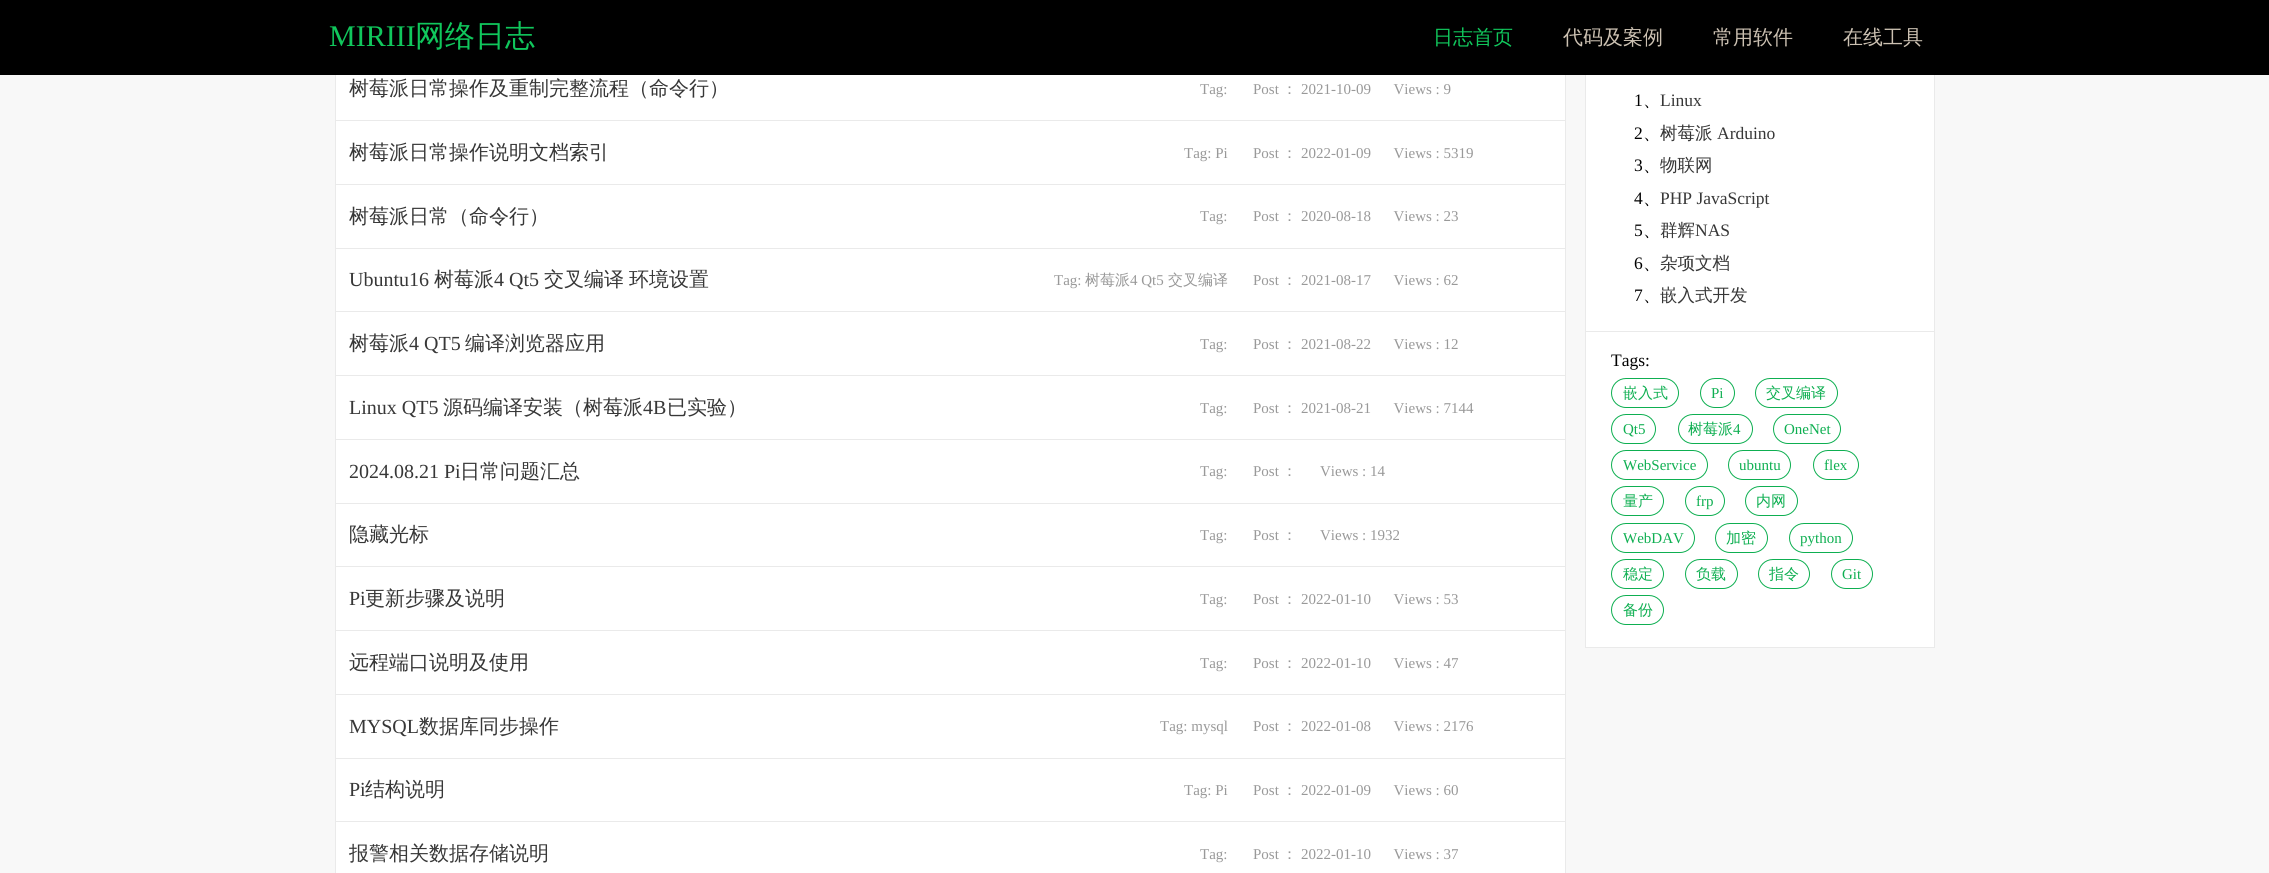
#include <cairo/cairo.h>
#include <math.h>
#include <stddef.h>

static cairo_t *cr;

static void use_color(int r, int g, int b) {
  cairo_set_source_rgb(cr, r / 255.0, g / 255.0, b / 255.0);
}

static void text(double x, double y, const char *s, const char *family, double size, int italic, int bold, int r, int g, int b) {
  cairo_select_font_face(cr, family, italic ? CAIRO_FONT_SLANT_ITALIC : CAIRO_FONT_SLANT_NORMAL,
    bold ? CAIRO_FONT_WEIGHT_BOLD : CAIRO_FONT_WEIGHT_NORMAL);
  cairo_set_font_size(cr, size);
  use_color(r, g, b);
  cairo_move_to(cr, x, y);
  cairo_show_text(cr, s);
}

static void box(double x, double y, double w, double h, int r, int g, int b) {
  use_color(r, g, b);
  cairo_rectangle(cr, x, y, w, h);
  cairo_fill(cr);
}

static void round_rect(double x, double y, double w, double h, double r) {
  cairo_new_sub_path(cr);
  cairo_arc(cr, x + w - r, y + h - r, r, 0, M_PI / 2);
  cairo_arc(cr, x + r, y + h - r, r, M_PI / 2, M_PI);
  cairo_arc(cr, x + r, y + r, r, M_PI, 1.5 * M_PI);
  cairo_arc(cr, x + w - r, y + r, r, 1.5 * M_PI, 2 * M_PI);
  cairo_close_path(cr);
}

static void draw(void) {
  use_color(248, 248, 248);
  cairo_paint(cr);
  box(336, 75, 1229, 45, 255, 255, 255);
  cairo_rectangle(cr, 335.5, 56.5, 1230, 64);
  use_color(234, 234, 234);
  cairo_set_line_width(cr, 1);
  cairo_stroke(cr);
  box(1586, 75, 348, 572, 255, 255, 255);
  cairo_rectangle(cr, 1585.5, -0.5, 349, 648);
  use_color(234, 234, 234);
  cairo_stroke(cr);
  box(0, 0, 2269, 75, 0, 0, 0);
  use_color(255, 255, 255);
  cairo_rectangle(cr, 335.5, 120.5, 1230, 64);
  cairo_fill_preserve(cr);
  use_color(234, 234, 234);
  cairo_stroke(cr);
  use_color(255, 255, 255);
  cairo_rectangle(cr, 335.5, 184.5, 1230, 64);
  cairo_fill_preserve(cr);
  use_color(234, 234, 234);
  cairo_stroke(cr);
  box(336, 249, 1229, 62, 255, 255, 255);
  cairo_rectangle(cr, 335.5, 248.5, 1230, 64);
  use_color(234, 234, 234);
  cairo_stroke(cr);
  use_color(255, 255, 255);
  cairo_rectangle(cr, 335.5, 311.5, 1230, 64);
  cairo_fill_preserve(cr);
  use_color(234, 234, 234);
  cairo_stroke(cr);
  use_color(255, 255, 255);
  cairo_rectangle(cr, 335.5, 375.5, 1230, 64);
  cairo_fill_preserve(cr);
  use_color(234, 234, 234);
  cairo_stroke(cr);
  use_color(255, 255, 255);
  cairo_rectangle(cr, 335.5, 439.5, 1230, 64);
  cairo_fill_preserve(cr);
  use_color(234, 234, 234);
  cairo_stroke(cr);
  box(336, 504, 1229, 62, 255, 255, 255);
  cairo_rectangle(cr, 335.5, 503.5, 1230, 64);
  use_color(234, 234, 234);
  cairo_stroke(cr);
  use_color(255, 255, 255);
  cairo_rectangle(cr, 335.5, 566.5, 1230, 64);
  cairo_fill_preserve(cr);
  use_color(234, 234, 234);
  cairo_stroke(cr);
  use_color(255, 255, 255);
  cairo_rectangle(cr, 335.5, 630.5, 1230, 64);
  cairo_fill_preserve(cr);
  use_color(234, 234, 234);
  cairo_stroke(cr);
  use_color(255, 255, 255);
  cairo_rectangle(cr, 335.5, 694.5, 1230, 64);
  cairo_fill_preserve(cr);
  use_color(234, 234, 234);
  cairo_stroke(cr);
  box(336, 759, 1229, 62, 255, 255, 255);
  cairo_rectangle(cr, 335.5, 758.5, 1230, 64);
  use_color(234, 234, 234);
  cairo_stroke(cr);
  use_color(255, 255, 255);
  cairo_rectangle(cr, 335.5, 821.5, 1230, 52);
  cairo_fill_preserve(cr);
  use_color(234, 234, 234);
  cairo_stroke(cr);
  box(1586, 331, 348, 1, 234, 234, 234);
  round_rect(1611.5, 378.5, 67, 29, 14.5);
  use_color(14, 175, 81);
  cairo_stroke(cr);
  round_rect(1700.5, 378.5, 34, 29, 14.5);
  cairo_stroke(cr);
  round_rect(1755.5, 378.5, 82, 29, 14.5);
  cairo_stroke(cr);
  round_rect(1611.5, 414.5, 44, 29, 14.5);
  cairo_stroke(cr);
  round_rect(1678.5, 414.5, 74, 29, 14.5);
  cairo_stroke(cr);
  round_rect(1773.5, 414.5, 67, 29, 14.5);
  cairo_stroke(cr);
  round_rect(1611.5, 450.5, 96, 29, 14.5);
  cairo_stroke(cr);
  round_rect(1728.5, 450.5, 62, 29, 14.5);
  cairo_stroke(cr);
  round_rect(1813.5, 450.5, 45, 29, 14.5);
  cairo_stroke(cr);
  round_rect(1611.5, 486.5, 52, 29, 14.5);
  cairo_stroke(cr);
  round_rect(1685.5, 486.5, 39, 29, 14.5);
  cairo_stroke(cr);
  round_rect(1745.5, 486.5, 52, 29, 14.5);
  cairo_stroke(cr);
  round_rect(1611.5, 523.5, 83, 29, 14.5);
  cairo_stroke(cr);
  round_rect(1715.5, 523.5, 52, 29, 14.5);
  cairo_stroke(cr);
  round_rect(1789.5, 523.5, 63, 29, 14.5);
  cairo_stroke(cr);
  round_rect(1611.5, 559.5, 52, 29, 14.5);
  cairo_stroke(cr);
  round_rect(1685.5, 559.5, 52, 29, 14.5);
  cairo_stroke(cr);
  round_rect(1758.5, 559.5, 51, 29, 14.5);
  cairo_stroke(cr);
  round_rect(1831.5, 559.5, 41, 29, 14.5);
  cairo_stroke(cr);
  round_rect(1611.5, 595.5, 52, 29, 14.5);
  cairo_stroke(cr);
  text(329, 46, "MIRIII", "Liberation Serif", 30, 0, 0, 16, 199, 92);
  text(415, 46, "网络日志", "WenQuanYi Zen Hei Medium", 30, 0, 0, 16, 199, 92);
  text(1433, 44, "日志首页", "WenQuanYi Zen Hei Medium", 20, 0, 0, 16, 199, 92);
  text(1563, 44, "代码及案例", "WenQuanYi Zen Hei Medium", 20, 0, 0, 204, 193, 178);
  text(1713, 44, "常用软件", "WenQuanYi Zen Hei Medium", 20, 0, 0, 204, 193, 178);
  text(1843, 44, "在线工具", "WenQuanYi Zen Hei Medium", 20, 0, 0, 204, 193, 178);
  text(349, 95, "树莓派日常操作及重制完整流程（命令行）", "WenQuanYi Zen Hei Medium", 20, 0, 0, 55, 55, 55);
  text(1200, 94, "Tag:", "Liberation Serif", 15, 0, 0, 153, 153, 153);
  text(1253, 94, "Post", "Liberation Serif", 15, 0, 0, 153, 153, 153);
  text(1282, 94, "：", "WenQuanYi Zen Hei Medium", 15, 0, 0, 153, 153, 153);
  text(1301, 94, "2021-10-09      Views : 9", "Liberation Serif", 15, 0, 0, 153, 153, 153);
  text(349, 159, "树莓派日常操作说明文档索引", "WenQuanYi Zen Hei Medium", 20, 0, 0, 55, 55, 55);
  text(1184, 158, "Tag: Pi", "Liberation Serif", 15, 0, 0, 153, 153, 153);
  text(1253, 158, "Post", "Liberation Serif", 15, 0, 0, 153, 153, 153);
  text(1282, 158, "：", "WenQuanYi Zen Hei Medium", 15, 0, 0, 153, 153, 153);
  text(1301, 158, "2022-01-09      Views : 5319", "Liberation Serif", 15, 0, 0, 153, 153, 153);
  text(349, 223, "树莓派日常（命令行）", "WenQuanYi Zen Hei Medium", 20, 0, 0, 55, 55, 55);
  text(1200, 221, "Tag:", "Liberation Serif", 15, 0, 0, 153, 153, 153);
  text(1253, 221, "Post", "Liberation Serif", 15, 0, 0, 153, 153, 153);
  text(1282, 221, "：", "WenQuanYi Zen Hei Medium", 15, 0, 0, 153, 153, 153);
  text(1301, 221, "2020-08-18      Views : 23", "Liberation Serif", 15, 0, 0, 153, 153, 153);
  text(349, 286, "Ubuntu16", "Liberation Serif", 20, 0, 0, 55, 55, 55);
  text(434, 286, "树莓派", "WenQuanYi Zen Hei Medium", 20, 0, 0, 55, 55, 55);
  text(494, 286, "4 Qt5", "Liberation Serif", 20, 0, 0, 55, 55, 55);
  text(544, 286, "交叉编译", "WenQuanYi Zen Hei Medium", 20, 0, 0, 55, 55, 55);
  text(629, 286, "环境设置", "WenQuanYi Zen Hei Medium", 20, 0, 0, 55, 55, 55);
  text(1054, 285, "Tag:", "Liberation Serif", 15, 0, 0, 153, 153, 153);
  text(1085, 285, "树莓派", "WenQuanYi Zen Hei Medium", 15, 0, 0, 153, 153, 153);
  text(1130, 285, "4 Qt5", "Liberation Serif", 15, 0, 0, 153, 153, 153);
  text(1168, 285, "交叉编译", "WenQuanYi Zen Hei Medium", 15, 0, 0, 153, 153, 153);
  text(1253, 285, "Post", "Liberation Serif", 15, 0, 0, 153, 153, 153);
  text(1282, 285, "：", "WenQuanYi Zen Hei Medium", 15, 0, 0, 153, 153, 153);
  text(1301, 285, "2021-08-17      Views : 62", "Liberation Serif", 15, 0, 0, 153, 153, 153);
  text(349, 350, "树莓派", "WenQuanYi Zen Hei Medium", 20, 0, 0, 55, 55, 55);
  text(409, 350, "4 QT5", "Liberation Serif", 20, 0, 0, 55, 55, 55);
  text(465, 350, "编译浏览器应用", "WenQuanYi Zen Hei Medium", 20, 0, 0, 55, 55, 55);
  text(1200, 349, "Tag:", "Liberation Serif", 15, 0, 0, 153, 153, 153);
  text(1253, 349, "Post", "Liberation Serif", 15, 0, 0, 153, 153, 153);
  text(1282, 349, "：", "WenQuanYi Zen Hei Medium", 15, 0, 0, 153, 153, 153);
  text(1301, 349, "2021-08-22      Views : 12", "Liberation Serif", 15, 0, 0, 153, 153, 153);
  text(349, 414, "Linux QT5", "Liberation Serif", 20, 0, 0, 55, 55, 55);
  text(443, 414, "源码编译安装（树莓派", "WenQuanYi Zen Hei Medium", 20, 0, 0, 55, 55, 55);
  text(643, 414, "4B", "Liberation Serif", 20, 0, 0, 55, 55, 55);
  text(667, 414, "已实验）", "WenQuanYi Zen Hei Medium", 20, 0, 0, 55, 55, 55);
  text(1200, 413, "Tag:", "Liberation Serif", 15, 0, 0, 153, 153, 153);
  text(1253, 413, "Post", "Liberation Serif", 15, 0, 0, 153, 153, 153);
  text(1282, 413, "：", "WenQuanYi Zen Hei Medium", 15, 0, 0, 153, 153, 153);
  text(1301, 413, "2021-08-21      Views : 7144", "Liberation Serif", 15, 0, 0, 153, 153, 153);
  text(349, 478, "2024.08.21 Pi", "Liberation Serif", 20, 0, 0, 55, 55, 55);
  text(460, 478, "日常问题汇总", "WenQuanYi Zen Hei Medium", 20, 0, 0, 55, 55, 55);
  text(1200, 476, "Tag:", "Liberation Serif", 15, 0, 0, 153, 153, 153);
  text(1253, 476, "Post", "Liberation Serif", 15, 0, 0, 153, 153, 153);
  text(1282, 476, "：", "WenQuanYi Zen Hei Medium", 15, 0, 0, 153, 153, 153);
  text(1320, 476, "Views : 14", "Liberation Serif", 15, 0, 0, 153, 153, 153);
  text(349, 541, "隐藏光标", "WenQuanYi Zen Hei Medium", 20, 0, 0, 55, 55, 55);
  text(1200, 540, "Tag:", "Liberation Serif", 15, 0, 0, 153, 153, 153);
  text(1253, 540, "Post", "Liberation Serif", 15, 0, 0, 153, 153, 153);
  text(1282, 540, "：", "WenQuanYi Zen Hei Medium", 15, 0, 0, 153, 153, 153);
  text(1320, 540, "Views : 1932", "Liberation Serif", 15, 0, 0, 153, 153, 153);
  text(349, 605, "Pi", "Liberation Serif", 20, 0, 0, 55, 55, 55);
  text(365, 605, "更新步骤及说明", "WenQuanYi Zen Hei Medium", 20, 0, 0, 55, 55, 55);
  text(1200, 604, "Tag:", "Liberation Serif", 15, 0, 0, 153, 153, 153);
  text(1253, 604, "Post", "Liberation Serif", 15, 0, 0, 153, 153, 153);
  text(1282, 604, "：", "WenQuanYi Zen Hei Medium", 15, 0, 0, 153, 153, 153);
  text(1301, 604, "2022-01-10      Views : 53", "Liberation Serif", 15, 0, 0, 153, 153, 153);
  text(349, 669, "远程端口说明及使用", "WenQuanYi Zen Hei Medium", 20, 0, 0, 55, 55, 55);
  text(1200, 668, "Tag:", "Liberation Serif", 15, 0, 0, 153, 153, 153);
  text(1253, 668, "Post", "Liberation Serif", 15, 0, 0, 153, 153, 153);
  text(1282, 668, "：", "WenQuanYi Zen Hei Medium", 15, 0, 0, 153, 153, 153);
  text(1301, 668, "2022-01-10      Views : 47", "Liberation Serif", 15, 0, 0, 153, 153, 153);
  text(349, 733, "MYSQL", "Liberation Serif", 20, 0, 0, 55, 55, 55);
  text(419, 733, "数据库同步操作", "WenQuanYi Zen Hei Medium", 20, 0, 0, 55, 55, 55);
  text(1160, 731, "Tag: mysql", "Liberation Serif", 15, 0, 0, 153, 153, 153);
  text(1253, 731, "Post", "Liberation Serif", 15, 0, 0, 153, 153, 153);
  text(1282, 731, "：", "WenQuanYi Zen Hei Medium", 15, 0, 0, 153, 153, 153);
  text(1301, 731, "2022-01-08      Views : 2176", "Liberation Serif", 15, 0, 0, 153, 153, 153);
  text(349, 796, "Pi", "Liberation Serif", 20, 0, 0, 55, 55, 55);
  text(365, 796, "结构说明", "WenQuanYi Zen Hei Medium", 20, 0, 0, 55, 55, 55);
  text(1184, 795, "Tag: Pi", "Liberation Serif", 15, 0, 0, 153, 153, 153);
  text(1253, 795, "Post", "Liberation Serif", 15, 0, 0, 153, 153, 153);
  text(1282, 795, "：", "WenQuanYi Zen Hei Medium", 15, 0, 0, 153, 153, 153);
  text(1301, 795, "2022-01-09      Views : 60", "Liberation Serif", 15, 0, 0, 153, 153, 153);
  text(349, 860, "报警相关数据存储说明", "WenQuanYi Zen Hei Medium", 20, 0, 0, 55, 55, 55);
  text(1200, 859, "Tag:", "Liberation Serif", 15, 0, 0, 153, 153, 153);
  text(1253, 859, "Post", "Liberation Serif", 15, 0, 0, 153, 153, 153);
  text(1282, 859, "：", "WenQuanYi Zen Hei Medium", 15, 0, 0, 153, 153, 153);
  text(1301, 859, "2022-01-10      Views : 37", "Liberation Serif", 15, 0, 0, 153, 153, 153);
  text(1634, 106, "1", "Liberation Serif", 17.5, 0, 0, 0, 0, 0);
  text(1643, 106, "、", "WenQuanYi Zen Hei Medium", 17.5, 0, 0, 0, 0, 0);
  text(1660, 106, "Linux", "Liberation Serif", 17.5, 0, 0, 55, 55, 55);
  text(1634, 139, "2", "Liberation Serif", 17.5, 0, 0, 0, 0, 0);
  text(1660, 139, "树莓派", "WenQuanYi Zen Hei Medium", 17.5, 0, 0, 55, 55, 55);
  text(1717, 139, "Arduino", "Liberation Serif", 17.5, 0, 0, 55, 55, 55);
  text(1643, 139, "、", "WenQuanYi Zen Hei Medium", 17.5, 0, 0, 0, 0, 0);
  text(1634, 171, "3", "Liberation Serif", 17.5, 0, 0, 0, 0, 0);
  text(1643, 171, "、", "WenQuanYi Zen Hei Medium", 17.5, 0, 0, 0, 0, 0);
  text(1660, 171, "物联网", "WenQuanYi Zen Hei Medium", 17.5, 0, 0, 55, 55, 55);
  text(1634, 204, "4", "Liberation Serif", 17.5, 0, 0, 0, 0, 0);
  text(1643, 204, "、", "WenQuanYi Zen Hei Medium", 17.5, 0, 0, 0, 0, 0);
  text(1660, 204, "PHP JavaScript", "Liberation Serif", 17.5, 0, 0, 55, 55, 55);
  text(1634, 236, "5", "Liberation Serif", 17.5, 0, 0, 0, 0, 0);
  text(1643, 236, "、", "WenQuanYi Zen Hei Medium", 17.5, 0, 0, 0, 0, 0);
  text(1660, 236, "群辉", "WenQuanYi Zen Hei Medium", 17.5, 0, 0, 55, 55, 55);
  text(1695, 236, "NAS", "Liberation Serif", 17.5, 0, 0, 55, 55, 55);
  text(1634, 269, "6", "Liberation Serif", 17.5, 0, 0, 0, 0, 0);
  text(1643, 269, "、", "WenQuanYi Zen Hei Medium", 17.5, 0, 0, 0, 0, 0);
  text(1660, 269, "杂项文档", "WenQuanYi Zen Hei Medium", 17.5, 0, 0, 55, 55, 55);
  text(1634, 301, "7", "Liberation Serif", 17.5, 0, 0, 0, 0, 0);
  text(1660, 301, "嵌入式开发", "WenQuanYi Zen Hei Medium", 17.5, 0, 0, 55, 55, 55);
  text(1643, 301, "、", "WenQuanYi Zen Hei Medium", 17.5, 0, 0, 0, 0, 0);
  text(1611, 366, "Tags:", "Liberation Serif", 17.5, 0, 0, 0, 0, 0);
  text(1623, 398, "嵌入式", "WenQuanYi Zen Hei Medium", 15, 0, 0, 14, 175, 81);
  text(1711, 398, "Pi", "Liberation Serif", 15, 0, 0, 14, 175, 81);
  text(1766, 398, "交叉编译", "WenQuanYi Zen Hei Medium", 15, 0, 0, 14, 175, 81);
  text(1623, 434, "Qt5", "Liberation Serif", 15, 0, 0, 14, 175, 81);
  text(1688, 434, "树莓派", "WenQuanYi Zen Hei Medium", 15, 0, 0, 14, 175, 81);
  text(1733, 434, "4", "Liberation Serif", 15, 0, 0, 14, 175, 81);
  text(1784, 434, "OneNet", "Liberation Serif", 15, 0, 0, 14, 175, 81);
  text(1623, 470, "WebService", "Liberation Serif", 15, 0, 0, 14, 175, 81);
  text(1739, 470, "ubuntu", "Liberation Serif", 15, 0, 0, 14, 175, 81);
  text(1824, 470, "flex", "Liberation Serif", 15, 0, 0, 14, 175, 81);
  text(1623, 506, "量产", "WenQuanYi Zen Hei Medium", 15, 0, 0, 14, 175, 81);
  text(1696, 506, "frp", "Liberation Serif", 15, 0, 0, 14, 175, 81);
  text(1756, 506, "内网", "WenQuanYi Zen Hei Medium", 15, 0, 0, 14, 175, 81);
  text(1623, 543, "WebDAV", "Liberation Serif", 15, 0, 0, 14, 175, 81);
  text(1726, 543, "加密", "WenQuanYi Zen Hei Medium", 15, 0, 0, 14, 175, 81);
  text(1800, 543, "python", "Liberation Serif", 15, 0, 0, 14, 175, 81);
  text(1623, 579, "稳定", "WenQuanYi Zen Hei Medium", 15, 0, 0, 14, 175, 81);
  text(1696, 579, "负载", "WenQuanYi Zen Hei Medium", 15, 0, 0, 14, 175, 81);
  text(1769, 579, "指令", "WenQuanYi Zen Hei Medium", 15, 0, 0, 14, 175, 81);
  text(1842, 579, "Git", "Liberation Serif", 15, 0, 0, 14, 175, 81);
  text(1623, 615, "备份", "WenQuanYi Zen Hei Medium", 15, 0, 0, 14, 175, 81);
}

int main(void) {
  cairo_surface_t *surface = cairo_image_surface_create(CAIRO_FORMAT_RGB24, 2269, 873);
  cr = cairo_create(surface);
  cairo_font_options_t *options = cairo_font_options_create();
  cairo_font_options_set_hint_metrics(options, CAIRO_HINT_METRICS_OFF);
  cairo_font_options_set_hint_style(options, CAIRO_HINT_STYLE_NONE);
  cairo_set_font_options(cr, options);
  cairo_set_miter_limit(cr, 4);
  draw();
  cairo_surface_write_to_png(surface, "out.png");
  cairo_font_options_destroy(options);
  cairo_destroy(cr);
  cairo_surface_destroy(surface);
  return 0;
}
